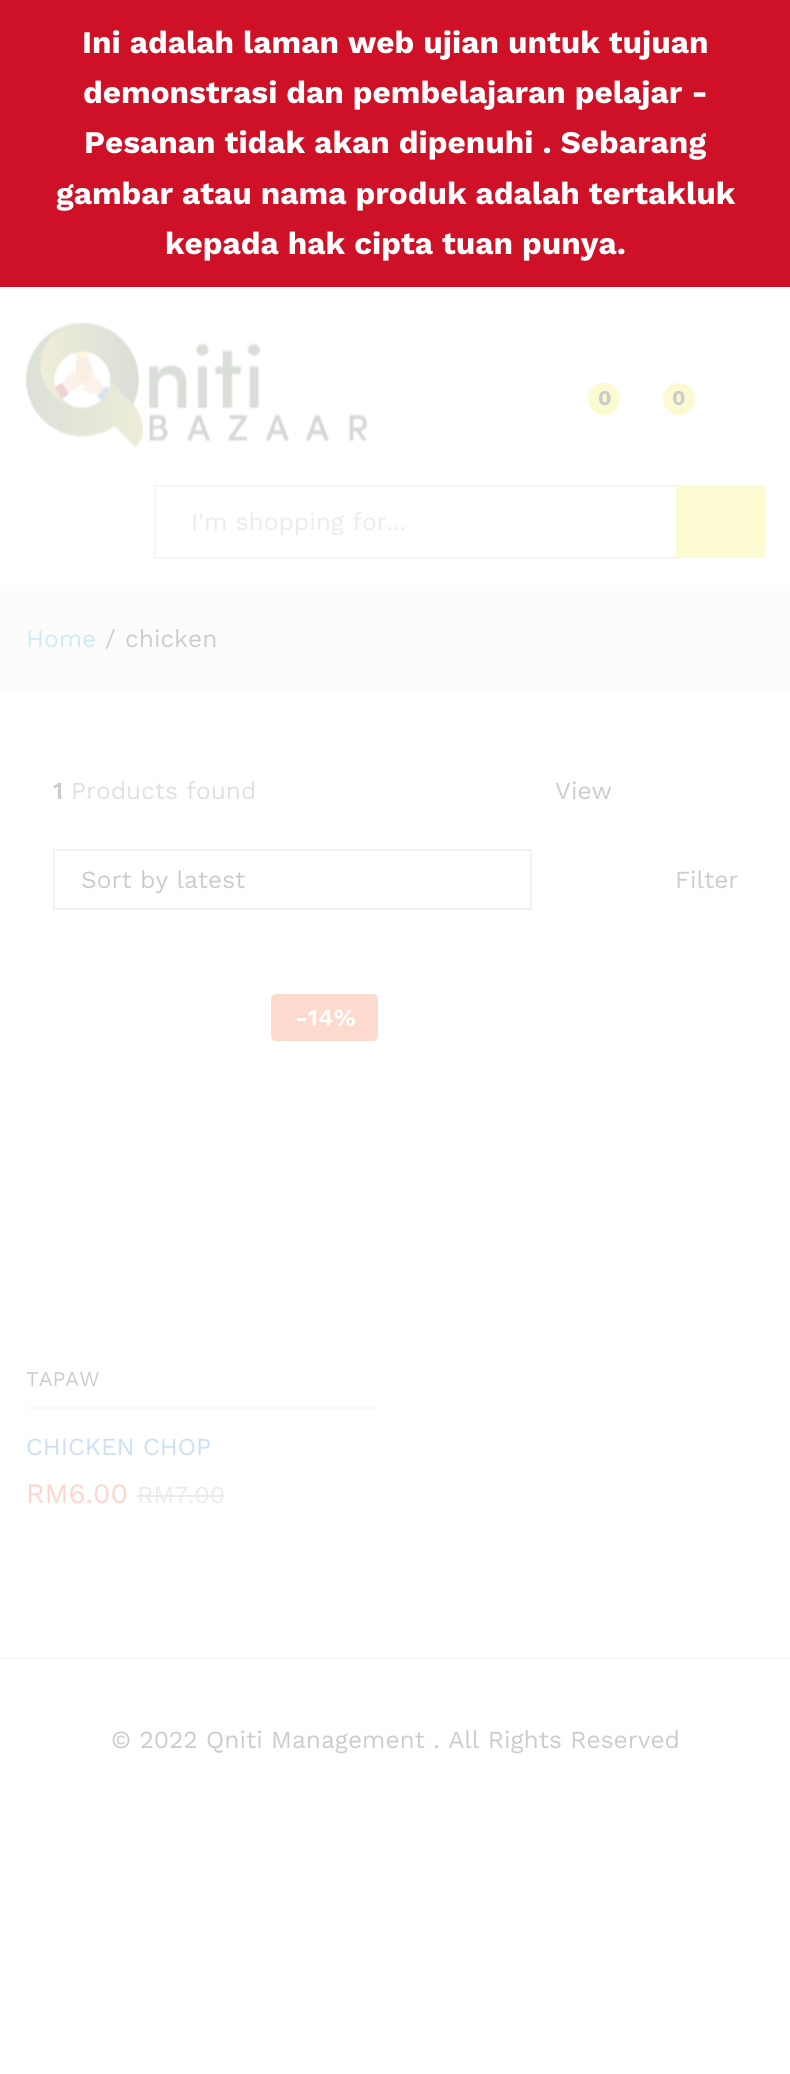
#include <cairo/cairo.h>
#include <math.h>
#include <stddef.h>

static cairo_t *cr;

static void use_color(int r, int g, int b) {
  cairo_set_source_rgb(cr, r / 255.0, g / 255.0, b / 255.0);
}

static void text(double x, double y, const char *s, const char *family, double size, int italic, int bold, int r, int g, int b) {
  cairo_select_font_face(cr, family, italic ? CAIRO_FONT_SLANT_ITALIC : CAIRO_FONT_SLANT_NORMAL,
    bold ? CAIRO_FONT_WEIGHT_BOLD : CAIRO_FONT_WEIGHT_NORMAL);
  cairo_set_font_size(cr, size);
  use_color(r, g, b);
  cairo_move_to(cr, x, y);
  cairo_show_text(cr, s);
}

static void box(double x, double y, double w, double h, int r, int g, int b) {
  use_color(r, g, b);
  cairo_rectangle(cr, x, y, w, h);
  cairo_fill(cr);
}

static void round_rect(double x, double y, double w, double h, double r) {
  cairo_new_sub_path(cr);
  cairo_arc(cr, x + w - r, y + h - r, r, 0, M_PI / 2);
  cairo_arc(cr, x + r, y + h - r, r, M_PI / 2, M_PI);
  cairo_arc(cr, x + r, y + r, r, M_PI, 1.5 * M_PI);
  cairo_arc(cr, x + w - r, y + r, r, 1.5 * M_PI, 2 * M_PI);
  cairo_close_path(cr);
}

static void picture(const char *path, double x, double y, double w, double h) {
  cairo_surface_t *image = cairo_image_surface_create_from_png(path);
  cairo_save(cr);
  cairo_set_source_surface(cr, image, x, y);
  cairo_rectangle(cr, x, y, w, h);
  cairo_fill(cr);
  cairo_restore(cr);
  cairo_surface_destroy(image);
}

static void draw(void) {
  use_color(255, 255, 255);
  cairo_paint(cr);
  box(0, 0, 790, 287, 206, 17, 38);
  picture("img_01.png", 26, 322, 342, 126);
  use_color(252, 250, 209);
  cairo_arc(cr, 604, 399, 16, 0, 2 * M_PI);
  cairo_fill(cr);
  cairo_arc(cr, 679, 399, 16, 0, 2 * M_PI);
  cairo_fill(cr);
  box(154, 485, 522, 2, 245, 245, 245);
  box(154, 557, 522, 2, 245, 245, 245);
  box(154, 485, 2, 73, 245, 245, 245);
  box(676, 485, 89, 73, 252, 250, 209);
  box(0, 585, 790, 108, 252, 252, 252);
  cairo_rectangle(cr, 54, 850, 477, 59);
  use_color(241, 241, 241);
  cairo_stroke(cr);
  use_color(252, 218, 205);
  round_rect(271, 994, 107, 47, 5);
  cairo_fill(cr);
  box(26, 1407, 352, 2, 249, 249, 249);
  box(137, 1495, 87, 2, 235, 235, 235);
  box(0, 1657, 790, 2, 249, 249, 249);
  text(82, 53, "Ini adalah laman web ujian untuk tujuan", "Work Sans", 31.5, 0, 1, 255, 255, 255);
  text(83, 103, "demonstrasi dan pembelajaran pelajar -", "Work Sans", 31.5, 0, 1, 255, 255, 255);
  text(84, 153, "Pesanan tidak akan dipenuhi . Sebarang", "Work Sans", 31.5, 0, 1, 255, 255, 255);
  text(56, 204, "gambar atau nama produk adalah tertakluk", "Work Sans", 31.5, 0, 1, 255, 255, 255);
  text(165, 254, "kepada hak cipta tuan punya.", "Work Sans", 31.5, 0, 1, 255, 255, 255);
  text(598, 405, "0", "Work Sans", 21, 0, 1, 204, 204, 204);
  text(672, 405, "0", "Work Sans", 21, 0, 1, 204, 204, 204);
  text(191, 530, "I'm shopping for...", "Work Sans", 24.5, 0, 0, 235, 235, 235);
  text(26, 647, "Home", "Work Sans", 24.5, 0, 0, 204, 235, 245);
  text(105, 647, "/", "Work Sans", 24.5, 0, 0, 204, 204, 204);
  text(125, 647, "chicken", "Work Sans", 24.5, 0, 0, 204, 204, 204);
  text(53, 799, "1", "Work Sans SemiBold", 24.5, 0, 0, 204, 204, 204);
  text(71, 799, "Products found", "Work Sans", 24.5, 0, 0, 224, 224, 224);
  text(555, 799, "View", "Work Sans", 24.5, 0, 0, 204, 204, 204);
  text(81, 888, "Sort by latest", "Work Sans", 24.5, 0, 0, 204, 204, 204);
  text(675, 888, "Filter", "Work Sans", 24.5, 0, 0, 204, 204, 204);
  text(295, 1026, "-14%", "Work Sans SemiBold", 24.5, 0, 0, 255, 255, 255);
  text(26, 1386, "TAPAW", "Work Sans", 21, 0, 0, 204, 204, 204);
  text(26, 1455, "CHICKEN CHOP", "Work Sans", 24.5, 0, 0, 204, 224, 245);
  text(26, 1503, "RM6.00", "Work Sans", 28, 0, 0, 255, 214, 204);
  text(137, 1503, "RM7.00", "Work Sans", 24.5, 0, 0, 235, 235, 235);
  text(111, 1748, "© 2022 Qniti Management . All Rights Reserved", "Work Sans", 24.5, 0, 0, 204, 204, 204);
}

int main(void) {
  cairo_surface_t *surface = cairo_image_surface_create(CAIRO_FORMAT_RGB24, 790, 2074);
  cr = cairo_create(surface);
  cairo_font_options_t *options = cairo_font_options_create();
  cairo_font_options_set_hint_metrics(options, CAIRO_HINT_METRICS_OFF);
  cairo_font_options_set_hint_style(options, CAIRO_HINT_STYLE_NONE);
  cairo_set_font_options(cr, options);
  cairo_set_miter_limit(cr, 4);
  draw();
  cairo_surface_write_to_png(surface, "out.png");
  cairo_font_options_destroy(options);
  cairo_destroy(cr);
  cairo_surface_destroy(surface);
  return 0;
}
